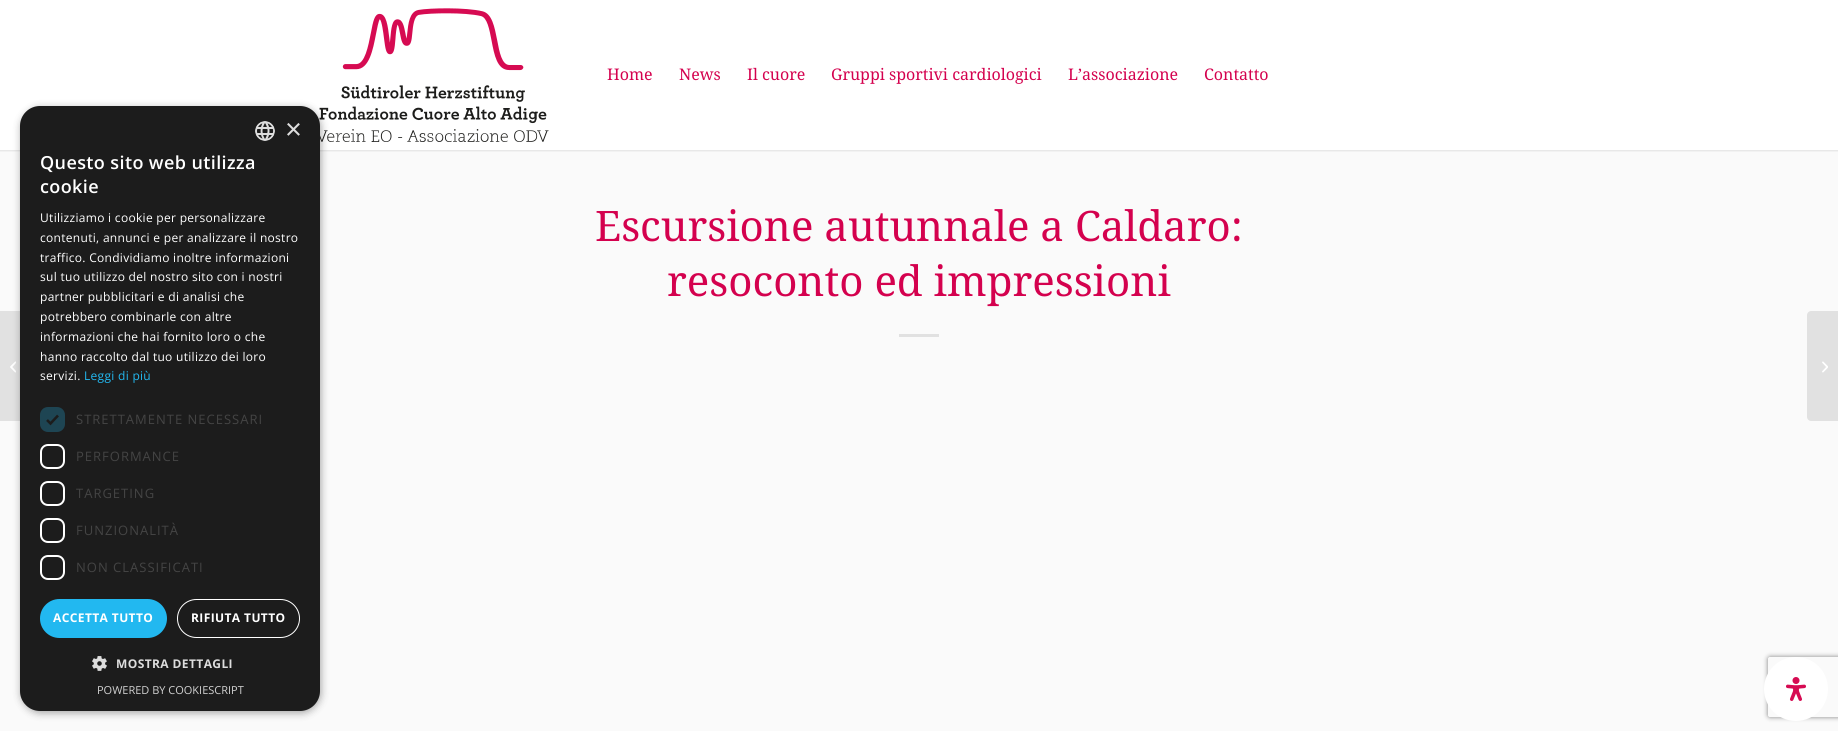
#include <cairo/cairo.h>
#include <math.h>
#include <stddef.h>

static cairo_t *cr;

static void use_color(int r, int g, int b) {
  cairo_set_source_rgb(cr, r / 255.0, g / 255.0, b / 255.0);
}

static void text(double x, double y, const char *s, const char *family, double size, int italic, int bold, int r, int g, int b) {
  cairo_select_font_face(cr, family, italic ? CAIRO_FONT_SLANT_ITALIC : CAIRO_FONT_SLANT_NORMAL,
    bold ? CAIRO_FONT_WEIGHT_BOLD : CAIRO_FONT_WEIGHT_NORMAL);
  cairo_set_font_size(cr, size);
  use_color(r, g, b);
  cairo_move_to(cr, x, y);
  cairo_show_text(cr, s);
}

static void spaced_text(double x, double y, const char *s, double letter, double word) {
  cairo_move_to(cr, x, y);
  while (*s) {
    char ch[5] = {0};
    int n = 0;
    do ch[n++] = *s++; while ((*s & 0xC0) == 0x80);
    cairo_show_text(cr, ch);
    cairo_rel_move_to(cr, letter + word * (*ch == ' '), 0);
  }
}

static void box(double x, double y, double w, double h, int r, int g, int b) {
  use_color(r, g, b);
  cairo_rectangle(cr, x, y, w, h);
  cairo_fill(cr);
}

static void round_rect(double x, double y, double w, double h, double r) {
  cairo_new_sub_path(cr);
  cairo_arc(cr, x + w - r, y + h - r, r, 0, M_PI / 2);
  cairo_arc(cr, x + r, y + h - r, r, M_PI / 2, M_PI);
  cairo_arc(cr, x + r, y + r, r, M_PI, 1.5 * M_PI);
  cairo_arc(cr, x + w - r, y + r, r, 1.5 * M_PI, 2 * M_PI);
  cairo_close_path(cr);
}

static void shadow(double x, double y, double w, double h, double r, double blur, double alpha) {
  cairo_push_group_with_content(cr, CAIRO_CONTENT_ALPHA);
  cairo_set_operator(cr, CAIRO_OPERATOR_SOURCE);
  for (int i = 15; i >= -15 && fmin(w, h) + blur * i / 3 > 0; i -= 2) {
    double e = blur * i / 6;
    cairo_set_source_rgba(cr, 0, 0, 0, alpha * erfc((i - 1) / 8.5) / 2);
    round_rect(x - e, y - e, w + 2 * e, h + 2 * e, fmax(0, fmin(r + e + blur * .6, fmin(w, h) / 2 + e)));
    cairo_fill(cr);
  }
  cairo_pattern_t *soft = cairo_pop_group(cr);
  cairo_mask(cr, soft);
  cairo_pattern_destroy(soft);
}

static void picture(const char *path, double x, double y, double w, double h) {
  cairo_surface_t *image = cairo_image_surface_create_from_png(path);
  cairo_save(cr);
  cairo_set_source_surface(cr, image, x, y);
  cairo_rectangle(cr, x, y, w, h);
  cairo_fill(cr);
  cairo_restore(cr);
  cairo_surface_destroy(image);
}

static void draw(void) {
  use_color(255, 255, 255);
  cairo_paint(cr);
  box(0, 150, 1838, 581, 250, 250, 250);
  cairo_save(cr);
  cairo_rectangle(cr, 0, 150, 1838, 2);
  cairo_clip(cr);
  use_color(0, 0, 0);
  shadow(-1, -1, 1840, 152, 0, 1, 0.1);
  cairo_restore(cr);
  picture("img_03.png", 319, 8, 230, 134);
  box(0, 311, 20, 110, 225, 225, 225);
  picture("img_04.png", 10, 361, 6, 12);
  use_color(0, 0, 0);
  shadow(21, 108, 300, 605, 20, 4, 0.35);
  use_color(28, 28, 28);
  round_rect(20, 106, 300, 605, 20);
  cairo_fill(cr);
  picture("img_01.png", 255, 121, 20, 20);
  use_color(30, 69, 83);
  round_rect(40, 407, 25, 25, 8);
  cairo_fill(cr);
  cairo_new_path(cr);
  cairo_move_to(cr, 47, 420);
  cairo_line_to(cr, 50.5, 423.5);
  cairo_line_to(cr, 58, 415.5);
  use_color(28, 28, 28);
  cairo_set_line_width(cr, 2.6);
  cairo_stroke(cr);
  round_rect(41, 445, 23, 23, 7);
  use_color(255, 255, 255);
  cairo_set_line_width(cr, 2);
  cairo_stroke(cr);
  round_rect(41, 482, 23, 23, 7);
  cairo_stroke(cr);
  round_rect(41, 519, 23, 23, 7);
  cairo_stroke(cr);
  round_rect(41, 556, 23, 23, 7);
  cairo_stroke(cr);
  use_color(34, 184, 240);
  round_rect(40, 599, 127, 39, 19.5);
  cairo_fill(cr);
  round_rect(177.5, 599.5, 122, 38, 19);
  use_color(255, 255, 255);
  cairo_set_line_width(cr, 1);
  cairo_stroke(cr);
  picture("img_02.png", 92, 656, 15, 15);
  box(899, 334, 40, 3, 225, 225, 225);
  cairo_new_path(cr);
  cairo_move_to(cr, 1811, 311);
  cairo_line_to(cr, 1838, 311);
  cairo_line_to(cr, 1838, 421);
  cairo_line_to(cr, 1811, 421);
  cairo_curve_to(cr, 1809, 421, 1807, 419, 1807, 417);
  cairo_line_to(cr, 1807, 315);
  cairo_curve_to(cr, 1807, 313, 1809, 311, 1811, 311);
  cairo_close_path(cr);
  cairo_fill(cr);
  picture("img_05.png", 1822, 361, 6, 12);
  cairo_save(cr);
  cairo_set_fill_rule(cr, CAIRO_FILL_RULE_EVEN_ODD);
  cairo_new_path(cr);
  cairo_move_to(cr, 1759, 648);
  cairo_line_to(cr, 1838, 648);
  cairo_line_to(cr, 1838, 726);
  cairo_line_to(cr, 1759, 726);
  cairo_close_path(cr);
  cairo_move_to(cr, 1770, 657);
  cairo_line_to(cr, 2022, 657);
  cairo_curve_to(cr, 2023, 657, 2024, 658, 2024, 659);
  cairo_line_to(cr, 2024, 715);
  cairo_curve_to(cr, 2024, 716, 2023, 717, 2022, 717);
  cairo_line_to(cr, 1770, 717);
  cairo_curve_to(cr, 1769, 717, 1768, 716, 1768, 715);
  cairo_line_to(cr, 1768, 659);
  cairo_curve_to(cr, 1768, 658, 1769, 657, 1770, 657);
  cairo_close_path(cr);
  cairo_clip(cr);
  use_color(128, 128, 128);
  shadow(1768, 657, 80, 60, 2, 2.5, 1);
  cairo_restore(cr);
  use_color(255, 255, 255);
  cairo_arc(cr, 1796, 689, 32, 0, 2 * M_PI);
  cairo_fill(cr);
  picture("img_06.png", 1786, 677, 20, 24);
  text(285, 139, "×", "Liberation Sans", 29, 0, 0, 221, 221, 221);
  cairo_select_font_face(cr, "Open Sans SemiBold", CAIRO_FONT_SLANT_NORMAL, CAIRO_FONT_WEIGHT_NORMAL);
  cairo_set_font_size(cr, 18);
  use_color(255, 255, 255);
  spaced_text(40, 169, "Questo sito web utilizza", 0.4, 0);
  spaced_text(40, 193, "cookie", 0.4, 0);
  cairo_select_font_face(cr, "Open Sans", CAIRO_FONT_SLANT_NORMAL, CAIRO_FONT_WEIGHT_NORMAL);
  cairo_set_font_size(cr, 12);
  spaced_text(40, 222, "Utilizziamo i cookie per personalizzare", 0.3, 0);
  spaced_text(40, 242, "contenuti, annunci e per analizzare il nostro", 0.3, 0);
  spaced_text(40, 262, "traffico. Condividiamo inoltre informazioni", 0.3, 0);
  spaced_text(40, 281, "sul tuo utilizzo del nostro sito con i nostri", 0.3, 0);
  spaced_text(40, 301, "partner pubblicitari e di analisi che", 0.3, 0);
  spaced_text(40, 321, "potrebbero combinarle con altre", 0.3, 0);
  spaced_text(40, 341, "informazioni che hai fornito loro o che", 0.3, 0);
  spaced_text(40, 361, "hanno raccolto dal tuo utilizzo dei loro", 0.3, 0);
  spaced_text(40, 380, "servizi.", 0.3, 0);
  use_color(34, 184, 240);
  spaced_text(84, 380, "Leggi di più", 0.3, 0);
  cairo_set_font_size(cr, 13);
  use_color(68, 68, 68);
  spaced_text(76, 424, "STRETTAMENTE NECESSARI", 1, 0);
  spaced_text(76, 461, "PERFORMANCE", 1, 0);
  spaced_text(76, 498, "TARGETING", 1, 0);
  spaced_text(76, 535, "FUNZIONALITÀ", 1, 0);
  spaced_text(76, 572, "NON CLASSIFICATI", 1, 0);
  cairo_select_font_face(cr, "Open Sans", CAIRO_FONT_SLANT_NORMAL, CAIRO_FONT_WEIGHT_BOLD);
  cairo_set_font_size(cr, 12);
  use_color(255, 255, 255);
  spaced_text(53, 622, "ACCETTA TUTTO", 0.4, 0);
  spaced_text(191, 622, "RIFIUTA TUTTO", 0.4, 0);
  use_color(221, 221, 221);
  spaced_text(116, 668, "MOSTRA DETTAGLI", 0.4, 0);
  text(97, 694, "POWERED BY COOKIESCRIPT", "Open Sans", 11, 0, 0, 210, 210, 210);
  text(607, 80, "Home", "Droid Serif", 16, 0, 0, 212, 1, 78);
  text(679, 80, "News", "Droid Serif", 16, 0, 0, 212, 1, 78);
  text(747, 80, "Il cuore", "Droid Serif", 16, 0, 0, 212, 1, 78);
  text(831, 80, "Gruppi sportivi cardiologici", "Droid Serif", 16, 0, 0, 212, 1, 78);
  text(1068, 80, "L’associazione", "Droid Serif", 16, 0, 0, 212, 1, 78);
  text(1204, 80, "Contatto", "Droid Serif", 16, 0, 0, 212, 1, 78);
  text(595, 241, "Escursione autunnale a Caldaro:", "Droid Serif", 42, 0, 0, 212, 1, 78);
  text(667, 296, "resoconto ed impressioni", "Droid Serif", 42, 0, 0, 212, 1, 78);
}

int main(void) {
  cairo_surface_t *surface = cairo_image_surface_create(CAIRO_FORMAT_RGB24, 1838, 731);
  cr = cairo_create(surface);
  cairo_font_options_t *options = cairo_font_options_create();
  cairo_font_options_set_hint_metrics(options, CAIRO_HINT_METRICS_OFF);
  cairo_font_options_set_hint_style(options, CAIRO_HINT_STYLE_NONE);
  cairo_set_font_options(cr, options);
  cairo_set_miter_limit(cr, 4);
  draw();
  cairo_surface_write_to_png(surface, "out.png");
  cairo_font_options_destroy(options);
  cairo_destroy(cr);
  cairo_surface_destroy(surface);
  return 0;
}
